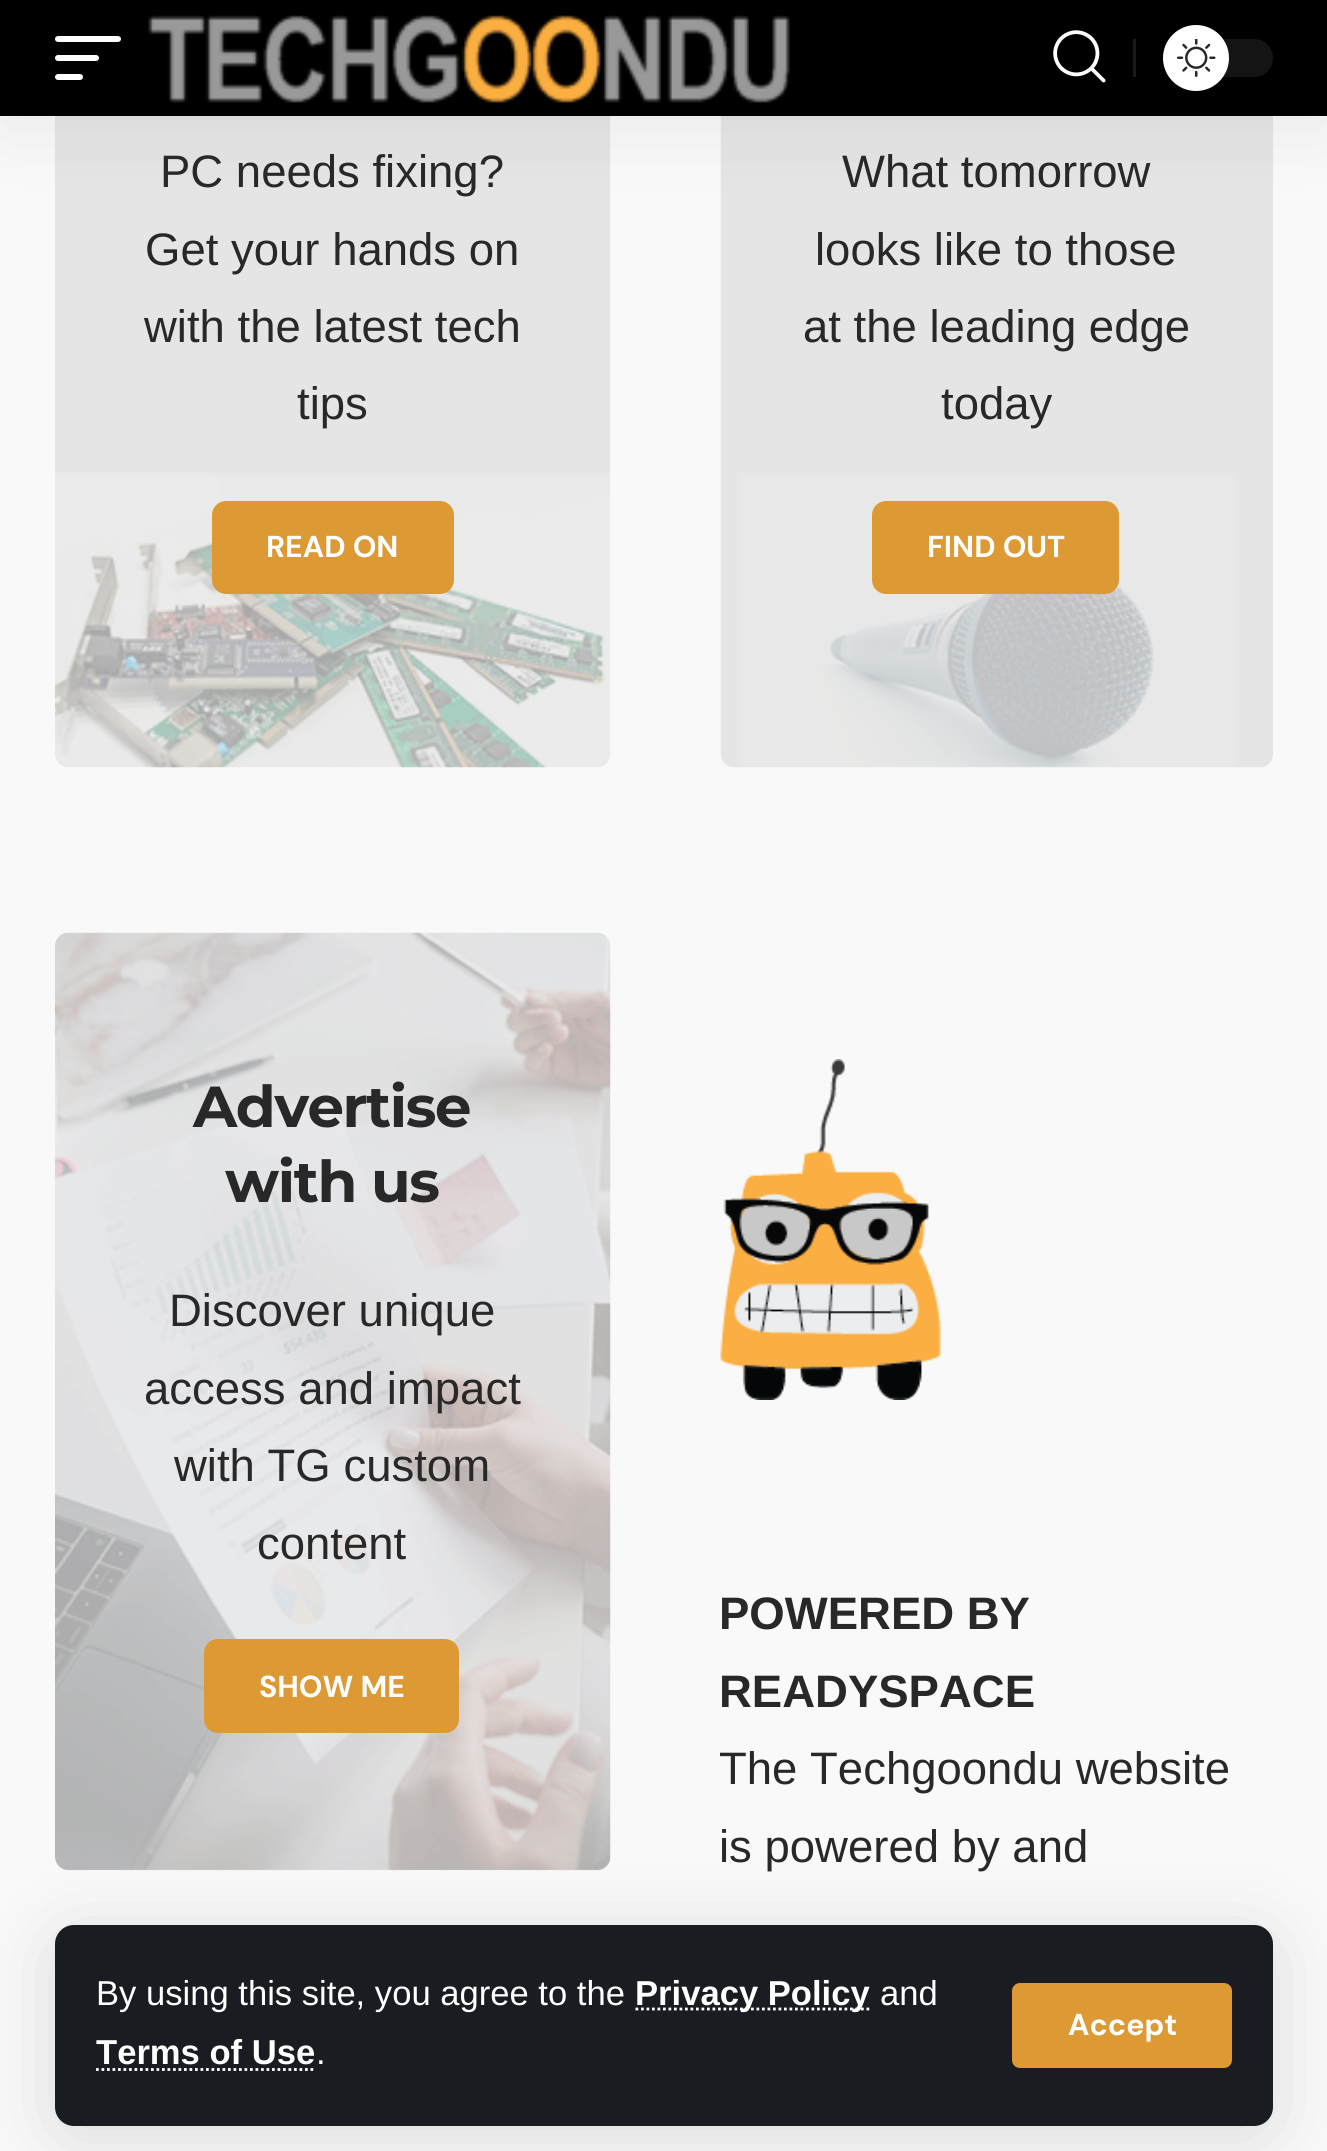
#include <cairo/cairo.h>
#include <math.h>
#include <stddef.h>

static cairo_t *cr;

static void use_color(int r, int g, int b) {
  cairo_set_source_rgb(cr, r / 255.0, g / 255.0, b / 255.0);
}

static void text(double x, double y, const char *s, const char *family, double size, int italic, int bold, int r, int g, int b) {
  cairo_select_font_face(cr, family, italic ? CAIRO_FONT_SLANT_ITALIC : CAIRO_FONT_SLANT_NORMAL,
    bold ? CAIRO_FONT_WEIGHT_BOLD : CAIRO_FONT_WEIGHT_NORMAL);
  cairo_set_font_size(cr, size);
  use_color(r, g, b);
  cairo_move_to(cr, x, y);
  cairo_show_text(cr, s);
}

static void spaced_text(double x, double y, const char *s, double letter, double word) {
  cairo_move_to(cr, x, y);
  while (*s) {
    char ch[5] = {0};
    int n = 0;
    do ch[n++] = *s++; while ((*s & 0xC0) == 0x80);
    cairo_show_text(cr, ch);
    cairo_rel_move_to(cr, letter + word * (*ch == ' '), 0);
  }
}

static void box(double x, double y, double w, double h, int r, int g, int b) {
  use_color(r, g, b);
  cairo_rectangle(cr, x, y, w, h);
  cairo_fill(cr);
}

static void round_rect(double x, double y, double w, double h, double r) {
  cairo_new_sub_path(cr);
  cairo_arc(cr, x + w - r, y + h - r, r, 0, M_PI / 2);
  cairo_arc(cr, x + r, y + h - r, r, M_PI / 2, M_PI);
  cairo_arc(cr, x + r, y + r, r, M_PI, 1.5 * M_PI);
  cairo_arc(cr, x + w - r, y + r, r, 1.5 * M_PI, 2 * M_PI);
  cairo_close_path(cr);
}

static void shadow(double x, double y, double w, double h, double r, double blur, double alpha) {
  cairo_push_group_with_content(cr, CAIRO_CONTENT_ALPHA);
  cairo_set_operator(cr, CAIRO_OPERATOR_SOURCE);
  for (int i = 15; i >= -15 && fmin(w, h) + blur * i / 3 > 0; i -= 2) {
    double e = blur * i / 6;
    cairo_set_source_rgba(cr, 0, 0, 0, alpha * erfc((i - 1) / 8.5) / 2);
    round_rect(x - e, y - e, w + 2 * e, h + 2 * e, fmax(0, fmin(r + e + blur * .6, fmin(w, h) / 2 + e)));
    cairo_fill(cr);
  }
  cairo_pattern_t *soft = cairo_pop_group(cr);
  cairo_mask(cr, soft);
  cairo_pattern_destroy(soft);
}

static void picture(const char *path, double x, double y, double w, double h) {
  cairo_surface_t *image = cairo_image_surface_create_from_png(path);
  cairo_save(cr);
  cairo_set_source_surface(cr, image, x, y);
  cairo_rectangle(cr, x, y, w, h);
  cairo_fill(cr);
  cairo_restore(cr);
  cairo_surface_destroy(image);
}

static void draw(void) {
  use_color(249, 249, 249);
  cairo_paint(cr);
  picture("img_01.png", 55, 116, 556, 652);
  use_color(221, 153, 51);
  round_rect(212, 501, 242, 93, 14);
  cairo_fill(cr);
  picture("img_02.png", 720, 116, 553, 652);
  round_rect(872, 501, 247, 93, 14);
  cairo_fill(cr);
  picture("img_03.png", 55, 932, 556, 939);
  round_rect(204, 1639, 255, 94, 14);
  cairo_fill(cr);
  picture("img_04.png", 720, 1059, 221, 341);
  use_color(0, 0, 0);
  shadow(0, 11, 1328, 116, 0, 41, 0.07);
  box(0, 0, 1327, 116, 0, 0, 0);
  use_color(255, 255, 255);
  round_rect(55, 36, 66, 6, 3);
  cairo_fill(cr);
  round_rect(55, 55, 44, 6, 3);
  cairo_fill(cr);
  round_rect(55, 74, 28, 6, 3);
  cairo_fill(cr);
  picture("img_05.png", 148, 15, 642, 88);
  picture("img_06.png", 1053, 30, 53, 53);
  box(1133, 39, 3, 38, 26, 26, 26);
  use_color(20, 20, 20);
  round_rect(1163, 39, 110, 38, 19);
  cairo_fill(cr);
  use_color(255, 255, 255);
  cairo_arc(cr, 1196, 58, 33, 0, 2 * M_PI);
  cairo_fill(cr);
  picture("img_07.png", 1177, 39, 39, 38);
  use_color(0, 0, 0);
  shadow(55, 1936, 1218, 201, 19, 41, 0.12);
  use_color(25, 28, 32);
  round_rect(55, 1925, 1218, 201, 19);
  cairo_fill(cr);
  cairo_new_path(cr);
  cairo_move_to(cr, 635.5, 2009);
  cairo_line_to(cr, 870, 2009);
  use_color(255, 255, 255);
  cairo_set_line_width(cr, 2.8);
  cairo_set_dash(cr, (double[]){2.75, 2.75}, 2, 0);
  cairo_stroke(cr);
  cairo_new_path(cr);
  cairo_move_to(cr, 96, 2069.5);
  cairo_line_to(cr, 315.5, 2069.5);
  cairo_stroke(cr);
  use_color(221, 153, 51);
  round_rect(1012, 1983, 220, 85, 8);
  cairo_fill(cr);
  text(160, 187, "PC needs fixing?", "Liberation Sans", 45.5, 0, 0, 40, 40, 40);
  text(145, 265, "Get your hands on", "Liberation Sans", 45.5, 0, 0, 40, 40, 40);
  text(144, 342, "with the latest tech", "Liberation Sans", 45.5, 0, 0, 40, 40, 40);
  text(297, 419, "tips", "Liberation Sans", 45.5, 0, 0, 40, 40, 40);
  text(266, 557, "READ ON", "DM Sans", 30.25, 0, 1, 255, 255, 255);
  text(842, 187, "What tomorrow", "Liberation Sans", 45.5, 0, 0, 40, 40, 40);
  text(815, 265, "looks like to those", "Liberation Sans", 45.5, 0, 0, 40, 40, 40);
  text(803, 342, "at the leading edge", "Liberation Sans", 45.5, 0, 0, 40, 40, 40);
  text(941, 419, "today", "Liberation Sans", 45.5, 0, 0, 40, 40, 40);
  text(927, 557, "FIND OUT", "DM Sans", 30.25, 0, 1, 255, 255, 255);
  cairo_select_font_face(cr, "Montserrat", CAIRO_FONT_SLANT_NORMAL, CAIRO_FONT_WEIGHT_BOLD);
  cairo_set_font_size(cr, 57.75);
  use_color(40, 40, 40);
  spaced_text(193, 1127, "Advertise", -1.4, 0);
  spaced_text(225, 1202, "with us", -1.4, 0);
  text(169, 1326, "Discover unique", "Liberation Sans", 45.5, 0, 0, 40, 40, 40);
  text(144, 1404, "access and impact", "Liberation Sans", 45.5, 0, 0, 40, 40, 40);
  text(174, 1481, "with TG custom", "Liberation Sans", 45.5, 0, 0, 40, 40, 40);
  text(257, 1559, "content", "Liberation Sans", 45.5, 0, 0, 40, 40, 40);
  text(259, 1697, "SHOW ME", "DM Sans", 30.25, 0, 1, 255, 255, 255);
  text(719, 1629, "POWERED BY", "Liberation Sans", 45.5, 0, 1, 40, 40, 40);
  text(719, 1707, "READYSPACE", "Liberation Sans", 45.5, 0, 1, 40, 40, 40);
  text(719, 1784, "The Techgoondu website", "Liberation Sans", 45.5, 0, 0, 40, 40, 40);
  text(719, 1862, "is powered by and", "Liberation Sans", 45.5, 0, 0, 40, 40, 40);
  text(96, 2005, "By using this site, you agree to the", "Liberation Sans", 34.6, 0, 0, 255, 255, 255);
  text(635, 2005, "Privacy Policy", "Liberation Sans", 34.6, 0, 1, 255, 255, 255);
  text(880, 2005, "and", "Liberation Sans", 34.6, 0, 0, 255, 255, 255);
  text(96, 2064, "Terms of Use", "Liberation Sans", 34.6, 0, 1, 255, 255, 255);
  text(316, 2064, ".", "Liberation Sans", 34.6, 0, 0, 255, 255, 255);
  text(1068, 2035, "Accept", "DM Sans", 30.25, 0, 1, 255, 255, 255);
}

int main(void) {
  cairo_surface_t *surface = cairo_image_surface_create(CAIRO_FORMAT_RGB24, 1327, 2151);
  cr = cairo_create(surface);
  cairo_font_options_t *options = cairo_font_options_create();
  cairo_font_options_set_hint_metrics(options, CAIRO_HINT_METRICS_OFF);
  cairo_font_options_set_hint_style(options, CAIRO_HINT_STYLE_NONE);
  cairo_set_font_options(cr, options);
  cairo_set_miter_limit(cr, 4);
  draw();
  cairo_surface_write_to_png(surface, "out.png");
  cairo_font_options_destroy(options);
  cairo_destroy(cr);
  cairo_surface_destroy(surface);
  return 0;
}
